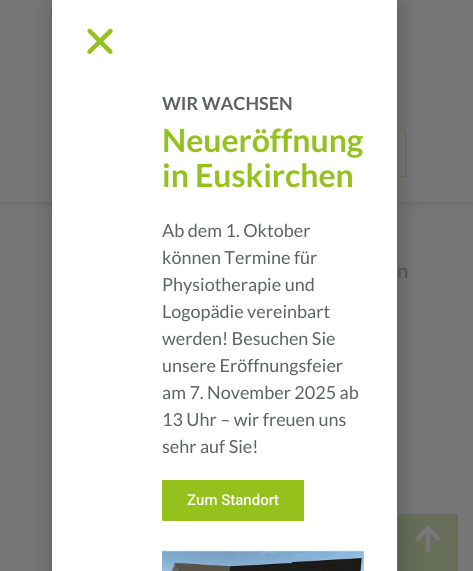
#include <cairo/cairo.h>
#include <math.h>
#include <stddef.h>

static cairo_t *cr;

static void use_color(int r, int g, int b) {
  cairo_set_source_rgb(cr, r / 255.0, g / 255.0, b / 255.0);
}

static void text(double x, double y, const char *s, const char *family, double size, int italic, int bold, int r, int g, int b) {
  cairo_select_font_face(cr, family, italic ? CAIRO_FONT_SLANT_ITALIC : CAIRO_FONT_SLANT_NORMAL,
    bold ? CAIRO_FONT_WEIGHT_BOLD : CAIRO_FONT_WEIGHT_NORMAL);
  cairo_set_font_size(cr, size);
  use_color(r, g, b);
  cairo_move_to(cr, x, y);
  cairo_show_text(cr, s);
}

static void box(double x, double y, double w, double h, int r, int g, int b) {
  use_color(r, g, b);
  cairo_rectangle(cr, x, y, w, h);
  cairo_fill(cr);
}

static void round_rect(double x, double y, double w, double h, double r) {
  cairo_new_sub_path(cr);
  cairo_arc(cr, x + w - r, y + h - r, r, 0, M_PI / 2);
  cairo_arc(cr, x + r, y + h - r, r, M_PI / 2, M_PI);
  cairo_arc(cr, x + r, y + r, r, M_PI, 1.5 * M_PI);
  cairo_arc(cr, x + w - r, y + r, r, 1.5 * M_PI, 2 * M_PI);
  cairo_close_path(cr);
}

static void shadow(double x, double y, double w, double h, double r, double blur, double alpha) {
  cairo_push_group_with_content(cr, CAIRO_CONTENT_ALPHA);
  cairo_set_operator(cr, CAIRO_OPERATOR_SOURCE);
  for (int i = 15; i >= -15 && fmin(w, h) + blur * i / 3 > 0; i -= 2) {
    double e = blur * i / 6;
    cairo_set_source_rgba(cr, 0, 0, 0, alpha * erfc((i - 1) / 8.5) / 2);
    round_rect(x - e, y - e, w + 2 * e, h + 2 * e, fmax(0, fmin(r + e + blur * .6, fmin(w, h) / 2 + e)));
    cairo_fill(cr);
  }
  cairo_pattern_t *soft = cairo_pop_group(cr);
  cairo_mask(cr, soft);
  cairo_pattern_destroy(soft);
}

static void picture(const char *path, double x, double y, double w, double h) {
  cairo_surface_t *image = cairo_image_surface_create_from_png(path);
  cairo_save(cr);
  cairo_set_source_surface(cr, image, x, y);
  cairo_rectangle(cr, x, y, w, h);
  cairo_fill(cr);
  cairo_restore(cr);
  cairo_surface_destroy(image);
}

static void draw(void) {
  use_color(117, 119, 120);
  cairo_paint(cr);
  use_color(82, 83, 84);
  shadow(0, 0, 473, 202, 0, 5, 0.5);
  box(0, 0, 473, 202, 117, 119, 120);
  cairo_rectangle(cr, 303.5, 129.5, 102, 47);
  use_color(102, 110, 88);
  cairo_set_line_width(cr, 1);
  cairo_stroke(cr);
  box(398, 514, 60, 57, 102, 110, 88);
  picture("img_03.png", 415, 525, 26, 27);
  use_color(0, 0, 0);
  shadow(51, 5, 351, 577, 0, 11.5, 0.2);
  box(52, 0, 345, 571, 255, 255, 255);
  picture("img_01.png", 87, 28, 26, 26);
  use_color(148, 193, 28);
  round_rect(162.5, 480.5, 141, 40, 0.5);
  cairo_fill_preserve(cr);
  cairo_stroke(cr);
  picture("img_02.png", 162, 550, 202, 21);
  text(162, 110, "WIR WACHSEN", "Lato", 18, 0, 1, 95, 97, 98);
  text(162, 152, "Neueröffnung", "Lato", 32, 0, 1, 148, 193, 28);
  text(162, 187, "in Euskirchen", "Lato", 32, 0, 1, 148, 193, 28);
  text(162, 237, "Ab dem 1. Oktober", "Lato", 18, 0, 0, 95, 97, 98);
  text(162, 264, "können Termine für", "Lato", 18, 0, 0, 95, 97, 98);
  text(162, 291, "Physiotherapie und", "Lato", 18, 0, 0, 95, 97, 98);
  text(162, 318, "Logopädie vereinbart", "Lato", 18, 0, 0, 95, 97, 98);
  text(162, 345, "werden! Besuchen Sie", "Lato", 18, 0, 0, 95, 97, 98);
  text(162, 372, "unsere Eröffnungsfeier", "Lato", 18, 0, 0, 95, 97, 98);
  text(162, 399, "am 7. November 2025 ab", "Lato", 18, 0, 0, 95, 97, 98);
  text(162, 426, "13 Uhr – wir freuen uns", "Lato", 18, 0, 0, 95, 97, 98);
  text(162, 453, "sehr auf Sie!", "Lato", 18, 0, 0, 95, 97, 98);
  text(187, 505, "Zum Standort", "Roboto Medium", 15, 0, 0, 255, 255, 255);
  text(397, 278, "n", "Lato", 20, 0, 1, 82, 83, 84);
}

int main(void) {
  cairo_surface_t *surface = cairo_image_surface_create(CAIRO_FORMAT_RGB24, 473, 571);
  cr = cairo_create(surface);
  cairo_font_options_t *options = cairo_font_options_create();
  cairo_font_options_set_hint_metrics(options, CAIRO_HINT_METRICS_OFF);
  cairo_font_options_set_hint_style(options, CAIRO_HINT_STYLE_NONE);
  cairo_set_font_options(cr, options);
  cairo_set_miter_limit(cr, 4);
  draw();
  cairo_surface_write_to_png(surface, "out.png");
  cairo_font_options_destroy(options);
  cairo_destroy(cr);
  cairo_surface_destroy(surface);
  return 0;
}
